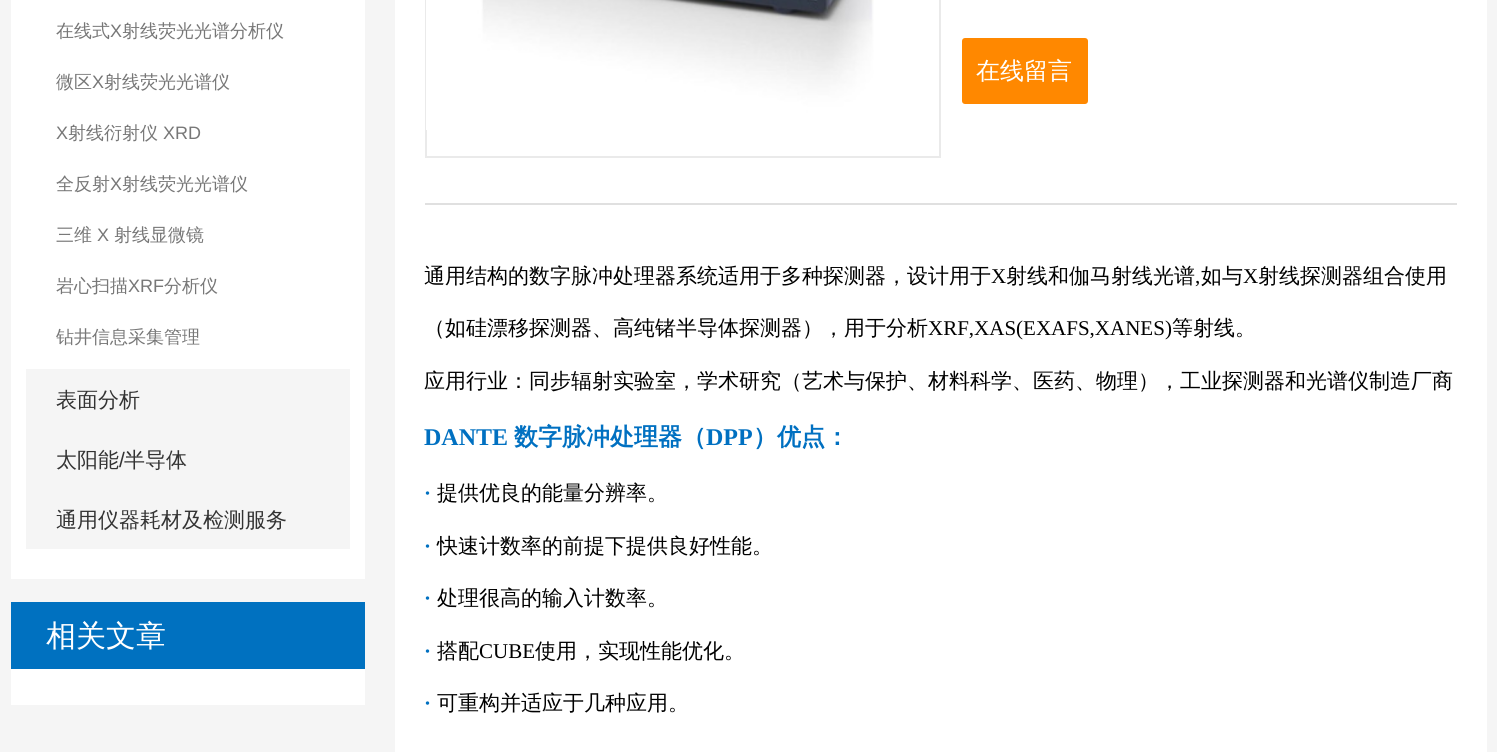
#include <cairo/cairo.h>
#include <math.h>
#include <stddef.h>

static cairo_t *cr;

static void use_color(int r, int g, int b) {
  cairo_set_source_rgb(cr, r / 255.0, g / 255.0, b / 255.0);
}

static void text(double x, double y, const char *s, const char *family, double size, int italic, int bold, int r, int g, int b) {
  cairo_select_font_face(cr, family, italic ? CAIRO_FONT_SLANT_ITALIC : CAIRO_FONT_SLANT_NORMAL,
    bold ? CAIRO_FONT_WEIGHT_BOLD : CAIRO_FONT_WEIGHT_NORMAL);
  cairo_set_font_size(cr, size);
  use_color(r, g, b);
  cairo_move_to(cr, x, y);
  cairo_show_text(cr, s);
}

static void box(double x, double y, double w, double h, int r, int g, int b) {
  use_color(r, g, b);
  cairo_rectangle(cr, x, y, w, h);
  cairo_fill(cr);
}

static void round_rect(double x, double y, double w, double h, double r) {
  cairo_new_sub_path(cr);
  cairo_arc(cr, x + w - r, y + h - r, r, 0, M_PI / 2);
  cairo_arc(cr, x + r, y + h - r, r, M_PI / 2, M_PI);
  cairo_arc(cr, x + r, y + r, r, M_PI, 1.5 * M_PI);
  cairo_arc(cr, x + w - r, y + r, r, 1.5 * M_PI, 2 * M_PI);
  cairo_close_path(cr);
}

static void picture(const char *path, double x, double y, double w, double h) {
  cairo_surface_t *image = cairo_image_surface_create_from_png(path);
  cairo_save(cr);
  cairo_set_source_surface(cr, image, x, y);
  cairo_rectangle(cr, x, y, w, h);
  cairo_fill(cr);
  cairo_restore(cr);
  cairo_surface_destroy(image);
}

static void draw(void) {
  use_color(245, 245, 245);
  cairo_paint(cr);
  box(11, 0, 354, 579, 255, 255, 255);
  box(26, 369, 324, 180, 245, 245, 245);
  box(11, 669, 354, 36, 255, 255, 255);
  box(11, 602, 354, 67, 0, 113, 192);
  box(395, 0, 1092, 752, 255, 255, 255);
  cairo_rectangle(cr, 426, -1, 514, 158);
  use_color(234, 234, 234);
  cairo_stroke(cr);
  picture("img_01.png", 426, 0, 448, 130);
  use_color(255, 136, 0);
  round_rect(962, 38, 126, 66, 3);
  cairo_fill(cr);
  box(425, 203, 1032, 2, 224, 224, 224);
  text(56, 37, "在线式", "WenQuanYi Zen Hei Medium", 18, 0, 0, 119, 119, 119);
  text(110, 37, "X", "Liberation Sans", 18, 0, 0, 119, 119, 119);
  text(122, 37, "射线荧光光谱分析仪", "WenQuanYi Zen Hei Medium", 18, 0, 0, 119, 119, 119);
  text(56, 88, "微区", "WenQuanYi Zen Hei Medium", 18, 0, 0, 119, 119, 119);
  text(92, 88, "X", "Liberation Sans", 18, 0, 0, 119, 119, 119);
  text(104, 88, "射线荧光光谱仪", "WenQuanYi Zen Hei Medium", 18, 0, 0, 119, 119, 119);
  text(56, 139, "X", "Liberation Sans", 18, 0, 0, 119, 119, 119);
  text(68, 139, "射线衍射仪", "WenQuanYi Zen Hei Medium", 18, 0, 0, 119, 119, 119);
  text(163, 139, "XRD", "Liberation Sans", 18, 0, 0, 119, 119, 119);
  text(56, 190, "全反射", "WenQuanYi Zen Hei Medium", 18, 0, 0, 119, 119, 119);
  text(110, 190, "X", "Liberation Sans", 18, 0, 0, 119, 119, 119);
  text(122, 190, "射线荧光光谱仪", "WenQuanYi Zen Hei Medium", 18, 0, 0, 119, 119, 119);
  text(56, 241, "三维", "WenQuanYi Zen Hei Medium", 18, 0, 0, 119, 119, 119);
  text(97, 241, "X", "Liberation Sans", 18, 0, 0, 119, 119, 119);
  text(114, 241, "射线显微镜", "WenQuanYi Zen Hei Medium", 18, 0, 0, 119, 119, 119);
  text(56, 292, "岩心扫描", "WenQuanYi Zen Hei Medium", 18, 0, 0, 119, 119, 119);
  text(128, 292, "XRF", "Liberation Sans", 18, 0, 0, 119, 119, 119);
  text(164, 292, "分析仪", "WenQuanYi Zen Hei Medium", 18, 0, 0, 119, 119, 119);
  text(56, 343, "钻井信息采集管理", "WenQuanYi Zen Hei Medium", 18, 0, 0, 119, 119, 119);
  text(56, 407, "表面分析", "WenQuanYi Zen Hei Medium", 21, 0, 0, 51, 51, 51);
  text(56, 467, "太阳能", "WenQuanYi Zen Hei Medium", 21, 0, 0, 51, 51, 51);
  text(119, 467, "/", "Liberation Sans", 21, 0, 0, 51, 51, 51);
  text(124, 467, "半导体", "WenQuanYi Zen Hei Medium", 21, 0, 0, 51, 51, 51);
  text(56, 527, "通用仪器耗材及检测服务", "WenQuanYi Zen Hei Medium", 21, 0, 0, 51, 51, 51);
  text(46, 646, "相关文章", "WenQuanYi Zen Hei Medium", 30, 0, 0, 255, 255, 255);
  text(976, 79, "在线留言", "WenQuanYi Zen Hei Medium", 24, 0, 0, 255, 255, 255);
  text(424, 283, "通用结构的数字脉冲处理器系统适用于多种探测器，设计用于", "WenQuanYi Zen Hei Medium", 21, 0, 0, 0, 0, 0);
  text(991, 283, "X", "Liberation Serif", 21, 0, 0, 0, 0, 0);
  text(1006, 283, "射线和伽马射线光谱", "WenQuanYi Zen Hei Medium", 21, 0, 0, 0, 0, 0);
  text(1195, 283, ",", "Liberation Serif", 21, 0, 0, 0, 0, 0);
  text(1201, 283, "如与", "WenQuanYi Zen Hei Medium", 21, 0, 0, 0, 0, 0);
  text(1243, 283, "X", "Liberation Serif", 21, 0, 0, 0, 0, 0);
  text(1258, 283, "射线探测器组合使用", "WenQuanYi Zen Hei Medium", 21, 0, 0, 0, 0, 0);
  text(424, 335, "（如硅漂移探测器、高纯锗半导体探测器），用于分析", "WenQuanYi Zen Hei Medium", 21, 0, 0, 0, 0, 0);
  text(928, 335, "XRF,XAS(EXAFS,XANES)", "Liberation Serif", 21, 0, 0, 0, 0, 0);
  text(1172, 335, "等射线。", "WenQuanYi Zen Hei Medium", 21, 0, 0, 0, 0, 0);
  text(424, 388, "应用行业：同步辐射实验室，学术研究（艺术与保护、材料科学、医药、物理），工业探测器和光谱仪制造厂商", "WenQuanYi Zen Hei Medium", 21, 0, 0, 0, 0, 0);
  text(424, 445, "DANTE", "Liberation Serif", 24, 0, 1, 0, 112, 193);
  text(514, 445, "数字脉冲处理器（", "WenQuanYi Zen Hei", 24, 0, 1, 0, 112, 193);
  text(706, 445, "DPP", "Liberation Serif", 24, 0, 1, 0, 112, 193);
  text(753, 445, "）优点：", "WenQuanYi Zen Hei", 24, 0, 1, 0, 112, 193);
  text(424, 500, "·", "Liberation Serif", 21, 0, 1, 0, 112, 193);
  text(437, 500, "提供优良的能量分辨率。", "WenQuanYi Zen Hei Medium", 21, 0, 0, 0, 0, 0);
  text(424, 553, "·", "Liberation Serif", 21, 0, 1, 0, 112, 193);
  text(437, 553, "快速计数率的前提下提供良好性能。", "WenQuanYi Zen Hei Medium", 21, 0, 0, 0, 0, 0);
  text(424, 605, "·", "Liberation Serif", 21, 0, 1, 0, 112, 193);
  text(437, 605, "处理很高的输入计数率。", "WenQuanYi Zen Hei Medium", 21, 0, 0, 0, 0, 0);
  text(424, 658, "·", "Liberation Serif", 21, 0, 1, 0, 112, 193);
  text(437, 658, "搭配", "WenQuanYi Zen Hei Medium", 21, 0, 0, 0, 0, 0);
  text(479, 658, "CUBE", "Liberation Serif", 21, 0, 0, 0, 0, 0);
  text(535, 658, "使用，实现性能优化。", "WenQuanYi Zen Hei Medium", 21, 0, 0, 0, 0, 0);
  text(424, 710, "·", "Liberation Serif", 21, 0, 1, 0, 112, 193);
  text(437, 710, "可重构并适应于几种应用。", "WenQuanYi Zen Hei Medium", 21, 0, 0, 0, 0, 0);
}

int main(void) {
  cairo_surface_t *surface = cairo_image_surface_create(CAIRO_FORMAT_RGB24, 1497, 752);
  cr = cairo_create(surface);
  cairo_font_options_t *options = cairo_font_options_create();
  cairo_font_options_set_hint_metrics(options, CAIRO_HINT_METRICS_OFF);
  cairo_font_options_set_hint_style(options, CAIRO_HINT_STYLE_NONE);
  cairo_set_font_options(cr, options);
  cairo_set_miter_limit(cr, 4);
  draw();
  cairo_surface_write_to_png(surface, "out.png");
  cairo_font_options_destroy(options);
  cairo_destroy(cr);
  cairo_surface_destroy(surface);
  return 0;
}
